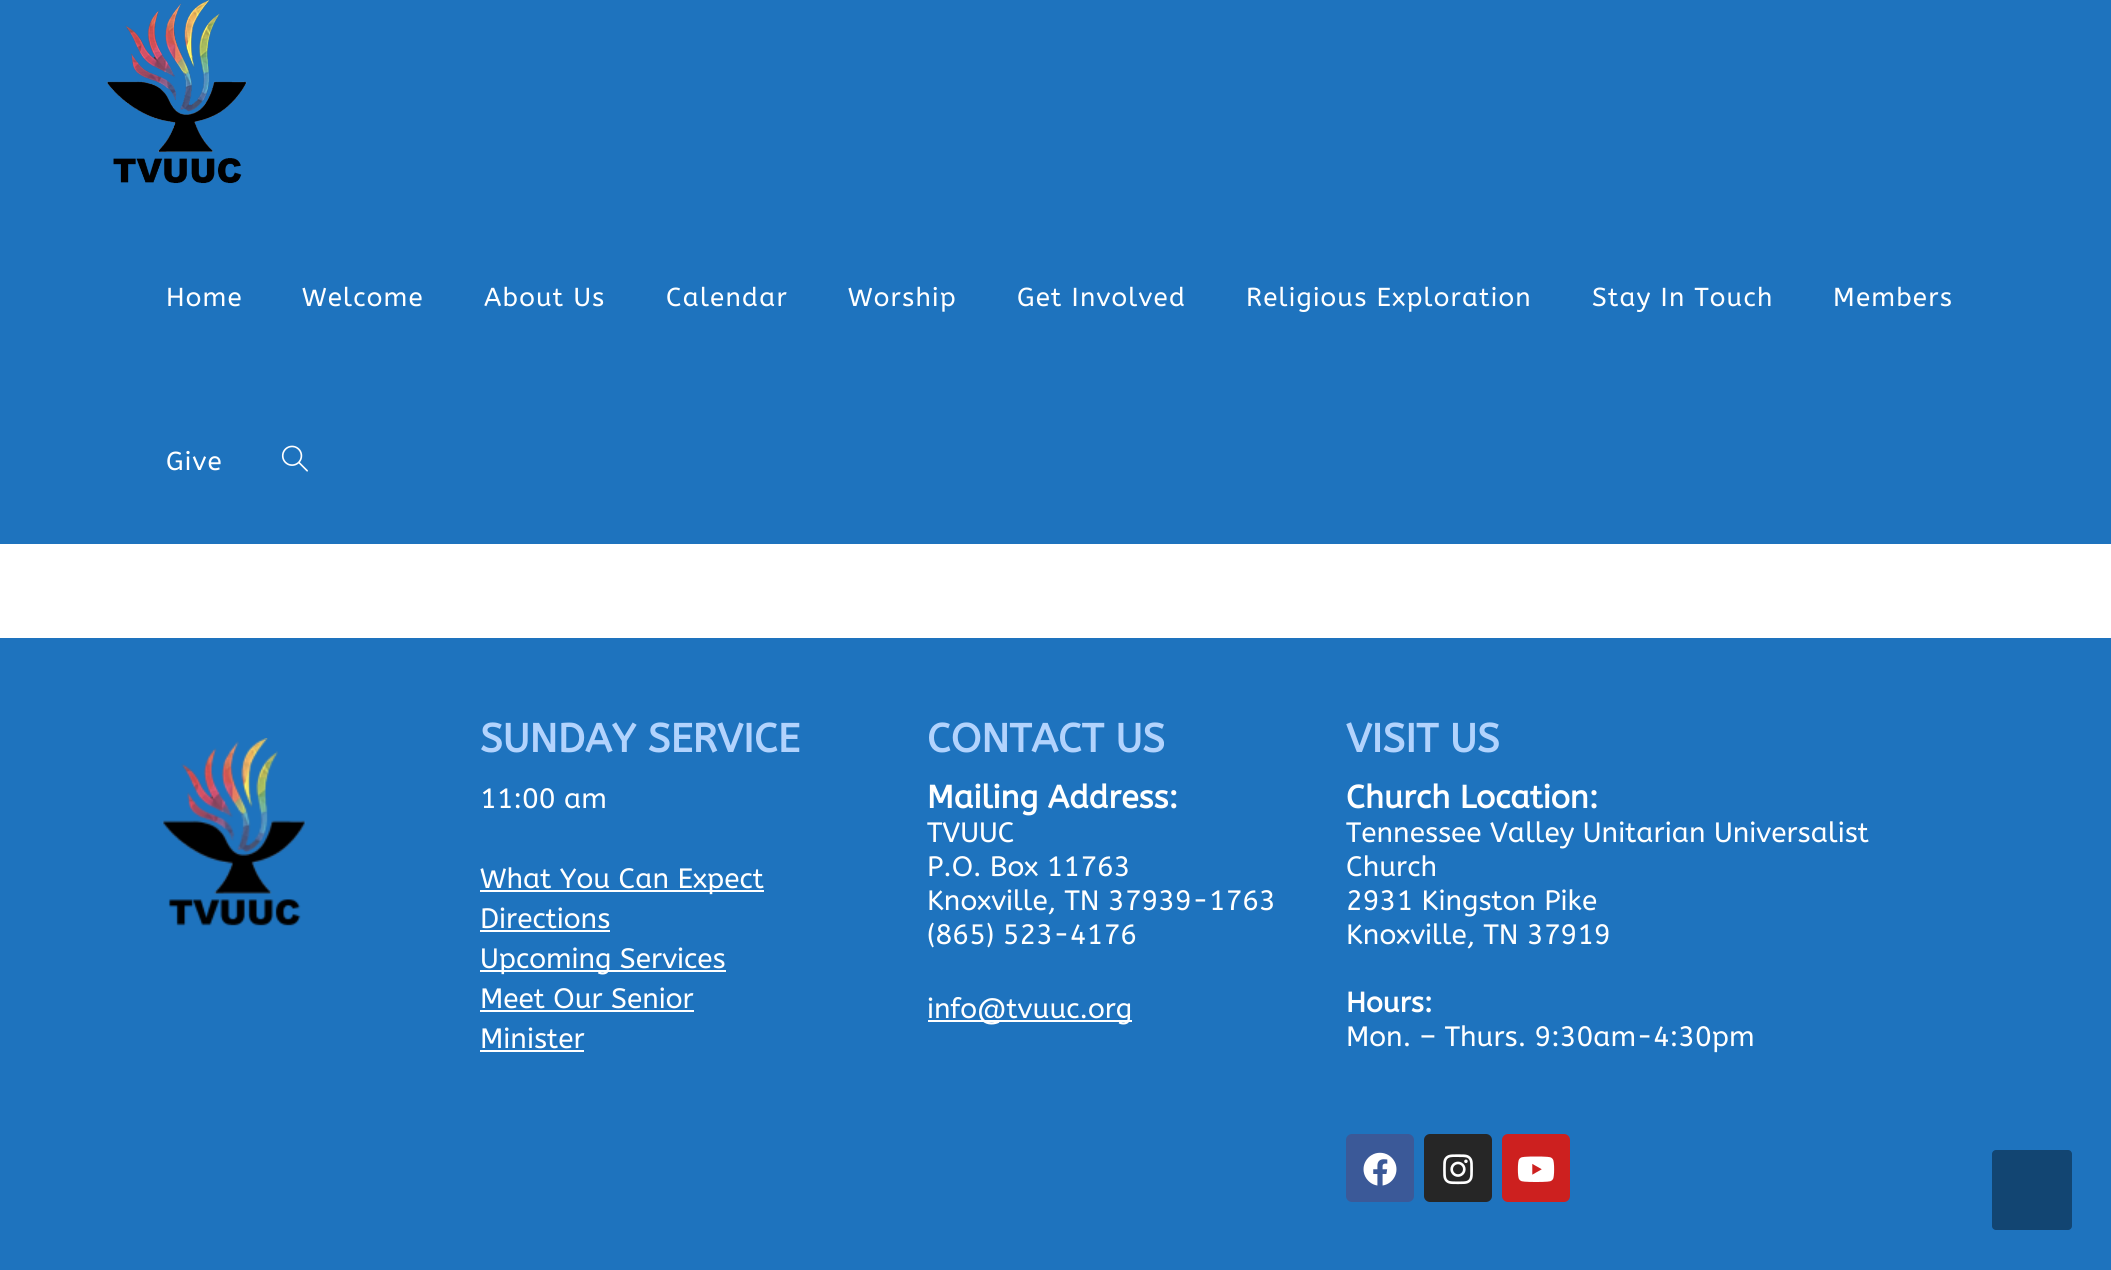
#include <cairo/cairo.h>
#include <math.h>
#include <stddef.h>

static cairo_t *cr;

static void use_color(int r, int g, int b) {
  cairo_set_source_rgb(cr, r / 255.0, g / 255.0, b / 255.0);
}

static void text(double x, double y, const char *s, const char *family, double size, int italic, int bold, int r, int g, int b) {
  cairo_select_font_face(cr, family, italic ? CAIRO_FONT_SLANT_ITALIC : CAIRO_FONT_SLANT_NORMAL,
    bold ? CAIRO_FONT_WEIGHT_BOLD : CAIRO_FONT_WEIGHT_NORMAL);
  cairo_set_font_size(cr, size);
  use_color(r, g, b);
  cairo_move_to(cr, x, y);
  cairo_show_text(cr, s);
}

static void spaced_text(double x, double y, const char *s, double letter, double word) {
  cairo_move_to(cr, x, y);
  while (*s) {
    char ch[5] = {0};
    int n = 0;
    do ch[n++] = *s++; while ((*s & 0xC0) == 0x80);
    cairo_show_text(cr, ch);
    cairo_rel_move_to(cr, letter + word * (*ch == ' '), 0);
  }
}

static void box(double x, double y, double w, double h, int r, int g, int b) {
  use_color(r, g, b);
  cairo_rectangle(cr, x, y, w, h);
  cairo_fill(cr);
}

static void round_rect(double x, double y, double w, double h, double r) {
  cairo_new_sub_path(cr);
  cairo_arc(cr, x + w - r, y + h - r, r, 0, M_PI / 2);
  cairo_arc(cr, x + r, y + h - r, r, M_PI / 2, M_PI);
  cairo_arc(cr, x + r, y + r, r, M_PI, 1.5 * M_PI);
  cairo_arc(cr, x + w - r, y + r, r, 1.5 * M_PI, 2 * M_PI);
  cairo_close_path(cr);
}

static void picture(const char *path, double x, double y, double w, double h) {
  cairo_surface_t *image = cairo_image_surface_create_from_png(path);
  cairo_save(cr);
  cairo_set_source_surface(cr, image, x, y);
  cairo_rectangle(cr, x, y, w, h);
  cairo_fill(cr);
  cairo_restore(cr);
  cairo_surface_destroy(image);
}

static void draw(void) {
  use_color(255, 255, 255);
  cairo_paint(cr);
  box(0, 0, 2111, 544, 30, 115, 190);
  picture("img_01.png", 107, 0, 140, 184);
  picture("img_02.png", 281, 445, 27, 27);
  box(0, 638, 2111, 632, 30, 115, 190);
  picture("img_03.png", 162, 738, 144, 188);
  box(480, 890, 284, 2, 255, 255, 255);
  box(480, 930, 130, 2, 255, 255, 255);
  box(480, 970, 246, 2, 255, 255, 255);
  box(480, 1010, 214, 2, 255, 255, 255);
  box(480, 1050, 104, 2, 255, 255, 255);
  box(928, 1020, 204, 2, 255, 255, 255);
  use_color(59, 89, 152);
  round_rect(1346, 1134, 68, 68, 6);
  cairo_fill(cr);
  picture("img_04.png", 1363, 1152, 34, 34);
  use_color(38, 38, 38);
  round_rect(1424, 1134, 68, 68, 6);
  cairo_fill(cr);
  picture("img_05.png", 1443, 1154, 30, 31);
  use_color(205, 32, 31);
  round_rect(1502, 1134, 68, 68, 6);
  cairo_fill(cr);
  picture("img_06.png", 1517, 1156, 38, 26);
  use_color(18, 69, 114);
  round_rect(1992, 1150, 80, 80, 4);
  cairo_fill(cr);
  cairo_select_font_face(cr, "ABeeZee", CAIRO_FONT_SLANT_NORMAL, CAIRO_FONT_WEIGHT_NORMAL);
  cairo_set_font_size(cr, 26);
  use_color(255, 255, 255);
  spaced_text(166, 306, "Home", 1.2, 0);
  spaced_text(302, 306, "Welcome", 1.2, 0);
  spaced_text(484, 306, "About Us", 1.2, 0);
  spaced_text(666, 306, "Calendar", 1.2, 0);
  spaced_text(848, 306, "Worship", 1.2, 0);
  spaced_text(1017, 306, "Get Involved", 1.2, 0);
  spaced_text(1246, 306, "Religious Exploration", 1.2, 0);
  spaced_text(1592, 306, "Stay In Touch", 1.2, 0);
  spaced_text(1833, 306, "Members", 1.2, 0);
  spaced_text(166, 470, "Give", 1.2, 0);
  text(480, 752, "SUNDAY SERVICE", "ABeeZee", 40, 0, 1, 178, 211, 253);
  text(480, 808, "11:00 am", "ABeeZee", 28, 0, 0, 255, 255, 255);
  text(480, 888, "What You Can Expect", "ABeeZee", 28, 0, 0, 255, 255, 255);
  text(480, 928, "Directions", "ABeeZee", 28, 0, 0, 255, 255, 255);
  text(480, 968, "Upcoming Services", "ABeeZee", 28, 0, 0, 255, 255, 255);
  text(480, 1008, "Meet Our Senior", "ABeeZee", 28, 0, 0, 255, 255, 255);
  text(480, 1048, "Minister", "ABeeZee", 28, 0, 0, 255, 255, 255);
  text(927, 752, "CONTACT US", "ABeeZee", 40, 0, 1, 178, 211, 253);
  text(927, 808, "Mailing Address:", "ABeeZee", 32, 0, 1, 255, 255, 255);
  text(927, 842, "TVUUC", "ABeeZee", 28, 0, 0, 255, 255, 255);
  text(927, 876, "P.O. Box 11763", "ABeeZee", 28, 0, 0, 255, 255, 255);
  text(927, 910, "Knoxville, TN 37939-1763", "ABeeZee", 28, 0, 0, 255, 255, 255);
  text(927, 944, "(865) 523-4176", "ABeeZee", 28, 0, 0, 255, 255, 255);
  text(927, 1018, "info@tvuuc.org", "ABeeZee", 28, 0, 0, 255, 255, 255);
  text(1346, 752, "VISIT US", "ABeeZee", 40, 0, 1, 178, 211, 253);
  text(1346, 808, "Church Location:", "ABeeZee", 32, 0, 1, 255, 255, 255);
  text(1346, 842, "Tennessee Valley Unitarian Universalist", "ABeeZee", 28, 0, 0, 255, 255, 255);
  text(1346, 876, "Church", "ABeeZee", 28, 0, 0, 255, 255, 255);
  text(1346, 910, "2931 Kingston Pike", "ABeeZee", 28, 0, 0, 255, 255, 255);
  text(1346, 944, "Knoxville, TN 37919", "ABeeZee", 28, 0, 0, 255, 255, 255);
  text(1346, 1012, "Hours:", "ABeeZee", 28, 0, 1, 255, 255, 255);
  text(1346, 1046, "Mon. – Thurs. 9:30am-4:30pm", "ABeeZee", 28, 0, 0, 255, 255, 255);
}

int main(void) {
  cairo_surface_t *surface = cairo_image_surface_create(CAIRO_FORMAT_RGB24, 2111, 1270);
  cr = cairo_create(surface);
  cairo_font_options_t *options = cairo_font_options_create();
  cairo_font_options_set_hint_metrics(options, CAIRO_HINT_METRICS_OFF);
  cairo_font_options_set_hint_style(options, CAIRO_HINT_STYLE_NONE);
  cairo_set_font_options(cr, options);
  cairo_set_miter_limit(cr, 4);
  draw();
  cairo_surface_write_to_png(surface, "out.png");
  cairo_font_options_destroy(options);
  cairo_destroy(cr);
  cairo_surface_destroy(surface);
  return 0;
}
